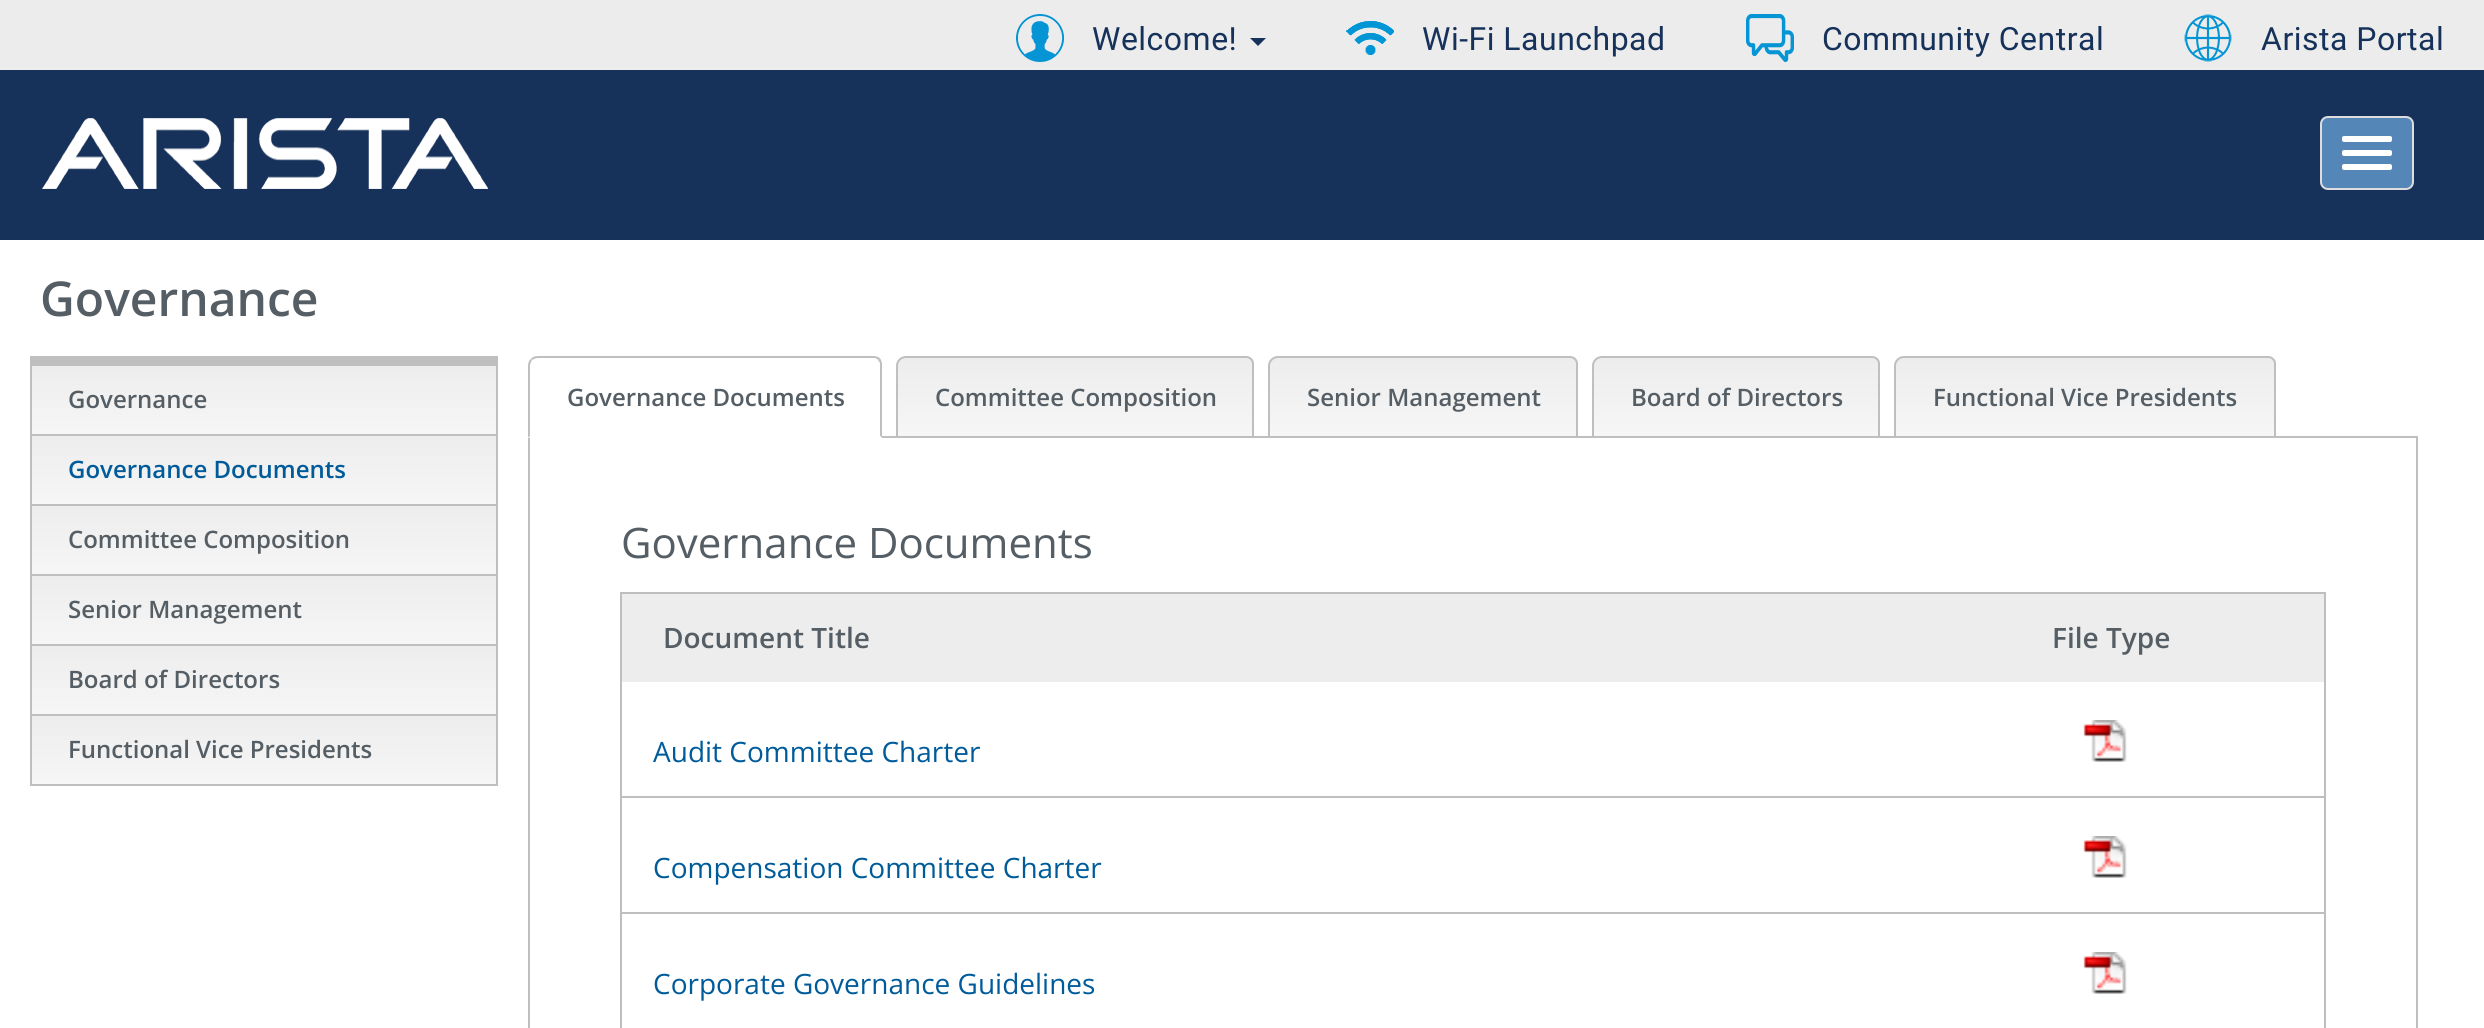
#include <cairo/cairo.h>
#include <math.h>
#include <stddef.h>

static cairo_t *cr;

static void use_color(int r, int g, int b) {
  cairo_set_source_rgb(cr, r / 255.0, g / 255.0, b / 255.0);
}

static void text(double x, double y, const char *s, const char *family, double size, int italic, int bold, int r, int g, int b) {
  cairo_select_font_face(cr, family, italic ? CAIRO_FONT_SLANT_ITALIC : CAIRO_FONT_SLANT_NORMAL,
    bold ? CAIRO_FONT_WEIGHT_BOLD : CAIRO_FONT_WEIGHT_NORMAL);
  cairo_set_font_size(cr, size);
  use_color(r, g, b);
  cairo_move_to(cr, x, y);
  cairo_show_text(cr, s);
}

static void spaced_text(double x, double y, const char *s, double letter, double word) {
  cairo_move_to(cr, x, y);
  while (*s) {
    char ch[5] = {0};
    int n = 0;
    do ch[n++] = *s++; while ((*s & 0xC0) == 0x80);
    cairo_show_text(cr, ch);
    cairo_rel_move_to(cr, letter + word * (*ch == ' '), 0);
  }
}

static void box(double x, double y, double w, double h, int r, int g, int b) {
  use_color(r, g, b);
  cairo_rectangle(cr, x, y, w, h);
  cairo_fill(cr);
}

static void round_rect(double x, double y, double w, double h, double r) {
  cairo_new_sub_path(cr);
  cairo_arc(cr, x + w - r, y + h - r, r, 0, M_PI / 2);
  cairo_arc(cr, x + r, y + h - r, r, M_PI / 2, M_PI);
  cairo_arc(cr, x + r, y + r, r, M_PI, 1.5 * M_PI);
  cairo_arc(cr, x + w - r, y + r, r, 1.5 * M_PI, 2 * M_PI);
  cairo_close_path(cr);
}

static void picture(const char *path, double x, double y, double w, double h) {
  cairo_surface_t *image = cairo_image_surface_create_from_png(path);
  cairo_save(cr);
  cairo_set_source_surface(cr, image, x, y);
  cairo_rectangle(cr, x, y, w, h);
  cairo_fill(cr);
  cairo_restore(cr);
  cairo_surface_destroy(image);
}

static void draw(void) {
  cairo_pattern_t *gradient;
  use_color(255, 255, 255);
  cairo_paint(cr);
  box(0, 70, 2484, 170, 22, 50, 91);
  box(0, 0, 2484, 70, 236, 236, 236);
  picture("img_01.png", 1016, 14, 48, 48);
  use_color(22, 50, 91);
  cairo_new_path(cr);
  cairo_move_to(cr, 1250, 38);
  cairo_line_to(cr, 1266, 38);
  cairo_line_to(cr, 1258, 46);
  cairo_close_path(cr);
  cairo_fill(cr);
  picture("img_02.png", 1346, 21, 48, 34);
  picture("img_03.png", 1746, 14, 48, 48);
  picture("img_04.png", 2184, 14, 48, 48);
  picture("img_05.png", 42, 118, 446, 71);
  use_color(84, 135, 184);
  round_rect(2321, 117, 92, 72, 7);
  cairo_fill_preserve(cr);
  use_color(221, 221, 221);
  cairo_stroke(cr);
  use_color(255, 255, 255);
  round_rect(2342, 136, 50, 6, 2);
  cairo_fill(cr);
  round_rect(2342, 150, 50, 6, 2);
  cairo_fill(cr);
  round_rect(2342, 164, 50, 6, 2);
  cairo_fill(cr);
  gradient = cairo_pattern_create_linear(264, 366, 264, 434);
  cairo_pattern_add_color_stop_rgba(gradient, 0, 0.855, 0.855, 0.855, 1);
  cairo_pattern_add_color_stop_rgba(gradient, 0, 0.929, 0.929, 0.929, 1);
  cairo_pattern_add_color_stop_rgba(gradient, 1, 0.965, 0.965, 0.965, 1);
  cairo_set_source(cr, gradient);
  cairo_pattern_destroy(gradient);
  cairo_rectangle(cr, 32, 366, 464, 68);
  cairo_fill(cr);
  box(32, 356, 464, 10, 191, 191, 191);
  box(496, 356, 2, 430, 191, 191, 191);
  box(30, 434, 468, 2, 191, 191, 191);
  box(30, 356, 2, 80, 191, 191, 191);
  gradient = cairo_pattern_create_linear(264, 436, 264, 504);
  cairo_pattern_add_color_stop_rgba(gradient, 0, 0.855, 0.855, 0.855, 1);
  cairo_pattern_add_color_stop_rgba(gradient, 0, 0.929, 0.929, 0.929, 1);
  cairo_pattern_add_color_stop_rgba(gradient, 1, 0.965, 0.965, 0.965, 1);
  cairo_set_source(cr, gradient);
  cairo_pattern_destroy(gradient);
  cairo_rectangle(cr, 32, 436, 464, 68);
  cairo_fill(cr);
  box(30, 504, 468, 2, 191, 191, 191);
  box(30, 436, 2, 70, 191, 191, 191);
  gradient = cairo_pattern_create_linear(264, 506, 264, 574);
  cairo_pattern_add_color_stop_rgba(gradient, 0, 0.855, 0.855, 0.855, 1);
  cairo_pattern_add_color_stop_rgba(gradient, 0, 0.929, 0.929, 0.929, 1);
  cairo_pattern_add_color_stop_rgba(gradient, 1, 0.965, 0.965, 0.965, 1);
  cairo_set_source(cr, gradient);
  cairo_pattern_destroy(gradient);
  cairo_rectangle(cr, 32, 506, 464, 68);
  cairo_fill(cr);
  box(30, 574, 468, 2, 191, 191, 191);
  box(30, 506, 2, 70, 191, 191, 191);
  gradient = cairo_pattern_create_linear(264, 576, 264, 644);
  cairo_pattern_add_color_stop_rgba(gradient, 0, 0.855, 0.855, 0.855, 1);
  cairo_pattern_add_color_stop_rgba(gradient, 0, 0.929, 0.929, 0.929, 1);
  cairo_pattern_add_color_stop_rgba(gradient, 1, 0.965, 0.965, 0.965, 1);
  cairo_set_source(cr, gradient);
  cairo_pattern_destroy(gradient);
  cairo_rectangle(cr, 32, 576, 464, 68);
  cairo_fill(cr);
  box(30, 644, 468, 2, 191, 191, 191);
  box(30, 576, 2, 70, 191, 191, 191);
  gradient = cairo_pattern_create_linear(264, 646, 264, 714);
  cairo_pattern_add_color_stop_rgba(gradient, 0, 0.855, 0.855, 0.855, 1);
  cairo_pattern_add_color_stop_rgba(gradient, 0, 0.929, 0.929, 0.929, 1);
  cairo_pattern_add_color_stop_rgba(gradient, 1, 0.965, 0.965, 0.965, 1);
  cairo_set_source(cr, gradient);
  cairo_pattern_destroy(gradient);
  cairo_rectangle(cr, 32, 646, 464, 68);
  cairo_fill(cr);
  box(30, 714, 468, 2, 191, 191, 191);
  box(30, 646, 2, 70, 191, 191, 191);
  gradient = cairo_pattern_create_linear(264, 716, 264, 784);
  cairo_pattern_add_color_stop_rgba(gradient, 0, 0.855, 0.855, 0.855, 1);
  cairo_pattern_add_color_stop_rgba(gradient, 0, 0.929, 0.929, 0.929, 1);
  cairo_pattern_add_color_stop_rgba(gradient, 1, 0.965, 0.965, 0.965, 1);
  cairo_set_source(cr, gradient);
  cairo_pattern_destroy(gradient);
  cairo_rectangle(cr, 32, 716, 464, 68);
  cairo_fill(cr);
  box(30, 784, 468, 2, 191, 191, 191);
  box(30, 716, 2, 70, 191, 191, 191);
  cairo_rectangle(cr, 529, 437, 1888, 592);
  cairo_stroke(cr);
  use_color(255, 255, 255);
  cairo_new_path(cr);
  cairo_move_to(cr, 538, 356);
  cairo_line_to(cr, 874, 356);
  cairo_curve_to(cr, 878.5, 356, 882, 359.5, 882, 364);
  cairo_line_to(cr, 882, 438);
  cairo_line_to(cr, 528, 438);
  cairo_line_to(cr, 528, 366);
  cairo_curve_to(cr, 528, 360.5, 532.5, 356, 538, 356);
  cairo_close_path(cr);
  cairo_fill(cr);
  use_color(191, 191, 191);
  cairo_new_path(cr);
  cairo_move_to(cr, 538, 356);
  cairo_curve_to(cr, 535, 356, 532, 357, 531, 359);
  cairo_line_to(cr, 532, 360);
  cairo_curve_to(cr, 534, 359, 536, 358, 538, 358);
  cairo_line_to(cr, 874, 358);
  cairo_curve_to(cr, 876, 358, 877, 359, 878, 360);
  cairo_line_to(cr, 880, 358);
  cairo_curve_to(cr, 878, 357, 876, 356, 874, 356);
  cairo_close_path(cr);
  cairo_fill(cr);
  cairo_new_path(cr);
  cairo_move_to(cr, 882, 438);
  cairo_line_to(cr, 882, 364);
  cairo_curve_to(cr, 882, 362, 881, 360, 880, 358);
  cairo_line_to(cr, 878, 360);
  cairo_line_to(cr, 880, 363);
  cairo_line_to(cr, 880, 436);
  cairo_close_path(cr);
  cairo_fill(cr);
  use_color(255, 255, 255);
  cairo_new_path(cr);
  cairo_move_to(cr, 882, 438);
  cairo_line_to(cr, 880, 436);
  cairo_line_to(cr, 530, 436);
  cairo_line_to(cr, 528, 438);
  cairo_close_path(cr);
  cairo_fill(cr);
  use_color(191, 191, 191);
  cairo_new_path(cr);
  cairo_move_to(cr, 528, 438);
  cairo_line_to(cr, 530, 436);
  cairo_line_to(cr, 530, 366);
  cairo_curve_to(cr, 530, 364, 531, 362, 532, 360);
  cairo_line_to(cr, 531, 359);
  cairo_curve_to(cr, 529, 360, 528, 363, 528, 366);
  cairo_close_path(cr);
  cairo_fill(cr);
  cairo_save(cr);
  cairo_new_path(cr);
  cairo_move_to(cr, 906, 356);
  cairo_line_to(cr, 1246, 356);
  cairo_curve_to(cr, 1250.5, 356, 1254, 359.5, 1254, 364);
  cairo_line_to(cr, 1254, 438);
  cairo_line_to(cr, 896, 438);
  cairo_line_to(cr, 896, 366);
  cairo_curve_to(cr, 896, 360.5, 900.5, 356, 906, 356);
  cairo_close_path(cr);
  cairo_clip(cr);
  gradient = cairo_pattern_create_linear(1075, 358, 1075, 436);
  cairo_pattern_add_color_stop_rgba(gradient, 0, 0.855, 0.855, 0.855, 1);
  cairo_pattern_add_color_stop_rgba(gradient, 0, 0.929, 0.929, 0.929, 1);
  cairo_pattern_add_color_stop_rgba(gradient, 1, 0.965, 0.965, 0.965, 1);
  cairo_set_source(cr, gradient);
  cairo_pattern_destroy(gradient);
  cairo_rectangle(cr, 896, 358, 358, 78);
  cairo_fill(cr);
  cairo_restore(cr);
  cairo_new_path(cr);
  cairo_move_to(cr, 906, 357);
  cairo_line_to(cr, 1246, 357);
  cairo_curve_to(cr, 1250, 357, 1253, 360, 1253, 364);
  cairo_line_to(cr, 1253, 437);
  cairo_line_to(cr, 897, 437);
  cairo_line_to(cr, 897, 366);
  cairo_curve_to(cr, 897, 361, 901, 357, 906, 357);
  cairo_close_path(cr);
  cairo_stroke(cr);
  cairo_save(cr);
  cairo_new_path(cr);
  cairo_move_to(cr, 1278, 356);
  cairo_line_to(cr, 1570, 356);
  cairo_curve_to(cr, 1574.5, 356, 1578, 359.5, 1578, 364);
  cairo_line_to(cr, 1578, 438);
  cairo_line_to(cr, 1268, 438);
  cairo_line_to(cr, 1268, 366);
  cairo_curve_to(cr, 1268, 360.5, 1272.5, 356, 1278, 356);
  cairo_close_path(cr);
  cairo_clip(cr);
  gradient = cairo_pattern_create_linear(1423, 358, 1423, 436);
  cairo_pattern_add_color_stop_rgba(gradient, 0, 0.855, 0.855, 0.855, 1);
  cairo_pattern_add_color_stop_rgba(gradient, 0, 0.929, 0.929, 0.929, 1);
  cairo_pattern_add_color_stop_rgba(gradient, 1, 0.965, 0.965, 0.965, 1);
  cairo_set_source(cr, gradient);
  cairo_pattern_destroy(gradient);
  cairo_rectangle(cr, 1268, 358, 310, 78);
  cairo_fill(cr);
  cairo_restore(cr);
  cairo_new_path(cr);
  cairo_move_to(cr, 1278, 357);
  cairo_line_to(cr, 1570, 357);
  cairo_curve_to(cr, 1574, 357, 1577, 360, 1577, 364);
  cairo_line_to(cr, 1577, 437);
  cairo_line_to(cr, 1269, 437);
  cairo_line_to(cr, 1269, 366);
  cairo_curve_to(cr, 1269, 361, 1273, 357, 1278, 357);
  cairo_close_path(cr);
  cairo_stroke(cr);
  cairo_save(cr);
  cairo_new_path(cr);
  cairo_move_to(cr, 1602, 356);
  cairo_line_to(cr, 1872, 356);
  cairo_curve_to(cr, 1876.5, 356, 1880, 359.5, 1880, 364);
  cairo_line_to(cr, 1880, 438);
  cairo_line_to(cr, 1592, 438);
  cairo_line_to(cr, 1592, 366);
  cairo_curve_to(cr, 1592, 360.5, 1596.5, 356, 1602, 356);
  cairo_close_path(cr);
  cairo_clip(cr);
  gradient = cairo_pattern_create_linear(1736, 358, 1736, 436);
  cairo_pattern_add_color_stop_rgba(gradient, 0, 0.855, 0.855, 0.855, 1);
  cairo_pattern_add_color_stop_rgba(gradient, 0, 0.929, 0.929, 0.929, 1);
  cairo_pattern_add_color_stop_rgba(gradient, 1, 0.965, 0.965, 0.965, 1);
  cairo_set_source(cr, gradient);
  cairo_pattern_destroy(gradient);
  cairo_rectangle(cr, 1592, 358, 288, 78);
  cairo_fill(cr);
  cairo_restore(cr);
  cairo_new_path(cr);
  cairo_move_to(cr, 1602, 357);
  cairo_line_to(cr, 1872, 357);
  cairo_curve_to(cr, 1876, 357, 1879, 360, 1879, 364);
  cairo_line_to(cr, 1879, 437);
  cairo_line_to(cr, 1593, 437);
  cairo_line_to(cr, 1593, 366);
  cairo_curve_to(cr, 1593, 361, 1597, 357, 1602, 357);
  cairo_close_path(cr);
  cairo_stroke(cr);
  cairo_save(cr);
  cairo_new_path(cr);
  cairo_move_to(cr, 1904, 356);
  cairo_line_to(cr, 2268, 356);
  cairo_curve_to(cr, 2272.5, 356, 2276, 359.5, 2276, 364);
  cairo_line_to(cr, 2276, 438);
  cairo_line_to(cr, 1894, 438);
  cairo_line_to(cr, 1894, 366);
  cairo_curve_to(cr, 1894, 360.5, 1898.5, 356, 1904, 356);
  cairo_close_path(cr);
  cairo_clip(cr);
  gradient = cairo_pattern_create_linear(2085, 358, 2085, 436);
  cairo_pattern_add_color_stop_rgba(gradient, 0, 0.855, 0.855, 0.855, 1);
  cairo_pattern_add_color_stop_rgba(gradient, 0, 0.929, 0.929, 0.929, 1);
  cairo_pattern_add_color_stop_rgba(gradient, 1, 0.965, 0.965, 0.965, 1);
  cairo_set_source(cr, gradient);
  cairo_pattern_destroy(gradient);
  cairo_rectangle(cr, 1894, 358, 382, 78);
  cairo_fill(cr);
  cairo_restore(cr);
  cairo_new_path(cr);
  cairo_move_to(cr, 1904, 357);
  cairo_line_to(cr, 2268, 357);
  cairo_curve_to(cr, 2272, 357, 2275, 360, 2275, 364);
  cairo_line_to(cr, 2275, 437);
  cairo_line_to(cr, 1895, 437);
  cairo_line_to(cr, 1895, 366);
  cairo_curve_to(cr, 1895, 361, 1899, 357, 1904, 357);
  cairo_close_path(cr);
  cairo_stroke(cr);
  box(620, 592, 1706, 2, 190, 190, 190);
  box(2324, 592, 2, 436, 190, 190, 190);
  box(620, 592, 2, 436, 190, 190, 190);
  box(622, 594, 1702, 88, 237, 237, 237);
  box(620, 796, 1706, 2, 191, 191, 191);
  picture("img_06.png", 2083, 720, 44, 42);
  box(620, 912, 1706, 2, 191, 191, 191);
  picture("img_07.png", 2083, 836, 44, 42);
  picture("img_06.png", 2083, 952, 44, 42);
  cairo_select_font_face(cr, "Roboto", CAIRO_FONT_SLANT_NORMAL, CAIRO_FONT_WEIGHT_NORMAL);
  cairo_set_font_size(cr, 32);
  use_color(22, 50, 91);
  spaced_text(1092, 50, "Welcome!", 0.5, 0);
  spaced_text(1422, 50, "Wi-Fi Launchpad", 0.5, 0);
  spaced_text(1822, 50, "Community Central", 0.5, 0);
  spaced_text(2261, 50, "Arista Portal", 0.5, 0);
  text(40, 316, "Governance", "Open Sans SemiBold", 48, 0, 0, 85, 94, 100);
  text(68, 408, "Governance", "Open Sans SemiBold", 24, 0, 0, 85, 94, 100);
  text(68, 478, "Governance Documents", "Open Sans SemiBold", 24, 0, 0, 0, 91, 154);
  text(68, 548, "Committee Composition", "Open Sans SemiBold", 24, 0, 0, 85, 94, 100);
  text(68, 618, "Senior Management", "Open Sans SemiBold", 24, 0, 0, 85, 94, 100);
  text(68, 688, "Board of Directors", "Open Sans SemiBold", 24, 0, 0, 85, 94, 100);
  text(68, 758, "Functional Vice Presidents", "Open Sans SemiBold", 24, 0, 0, 85, 94, 100);
  text(567, 406, "Governance Documents", "Open Sans SemiBold", 24, 0, 0, 85, 94, 100);
  text(935, 406, "Committee Composition", "Open Sans SemiBold", 24, 0, 0, 85, 94, 100);
  text(1307, 406, "Senior Management", "Open Sans SemiBold", 24, 0, 0, 85, 94, 100);
  text(1631, 406, "Board of Directors", "Open Sans SemiBold", 24, 0, 0, 85, 94, 100);
  text(1933, 406, "Functional Vice Presidents", "Open Sans SemiBold", 24, 0, 0, 85, 94, 100);
  text(621, 558, "Governance Documents", "Open Sans", 42, 0, 0, 85, 94, 100);
  text(663, 648, "Document Title", "Open Sans SemiBold", 28, 0, 0, 85, 94, 100);
  text(2052, 648, "File Type", "Open Sans SemiBold", 28, 0, 0, 85, 94, 100);
  text(653, 762, "Audit Committee Charter", "Open Sans", 28, 0, 0, 0, 91, 154);
  text(653, 878, "Compensation Committee Charter", "Open Sans", 28, 0, 0, 0, 91, 154);
  text(653, 994, "Corporate Governance Guidelines", "Open Sans", 28, 0, 0, 0, 91, 154);
}

int main(void) {
  cairo_surface_t *surface = cairo_image_surface_create(CAIRO_FORMAT_RGB24, 2484, 1028);
  cr = cairo_create(surface);
  cairo_font_options_t *options = cairo_font_options_create();
  cairo_font_options_set_hint_metrics(options, CAIRO_HINT_METRICS_OFF);
  cairo_font_options_set_hint_style(options, CAIRO_HINT_STYLE_NONE);
  cairo_set_font_options(cr, options);
  cairo_set_miter_limit(cr, 4);
  draw();
  cairo_surface_write_to_png(surface, "out.png");
  cairo_font_options_destroy(options);
  cairo_destroy(cr);
  cairo_surface_destroy(surface);
  return 0;
}
